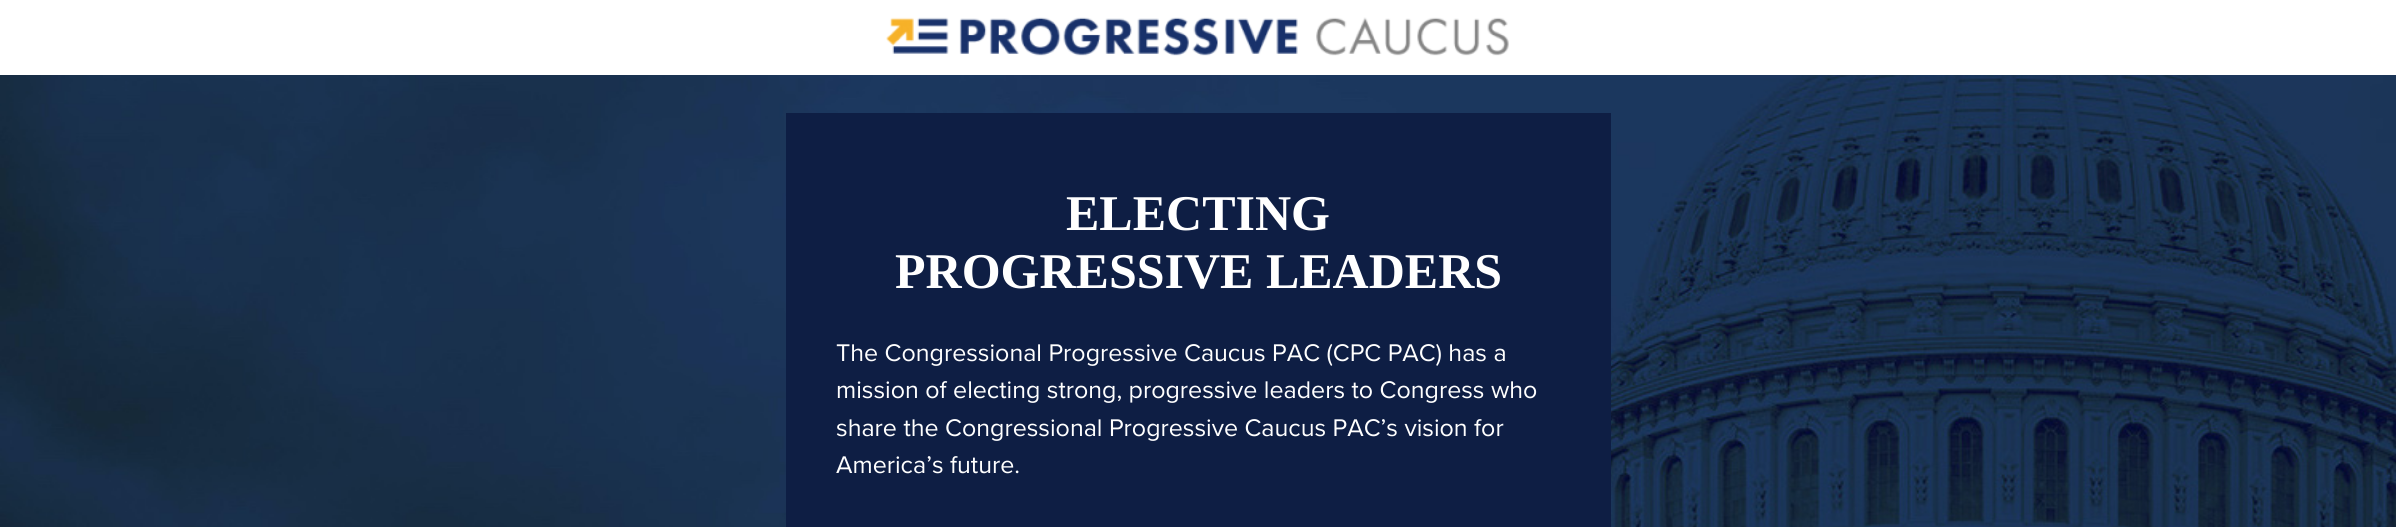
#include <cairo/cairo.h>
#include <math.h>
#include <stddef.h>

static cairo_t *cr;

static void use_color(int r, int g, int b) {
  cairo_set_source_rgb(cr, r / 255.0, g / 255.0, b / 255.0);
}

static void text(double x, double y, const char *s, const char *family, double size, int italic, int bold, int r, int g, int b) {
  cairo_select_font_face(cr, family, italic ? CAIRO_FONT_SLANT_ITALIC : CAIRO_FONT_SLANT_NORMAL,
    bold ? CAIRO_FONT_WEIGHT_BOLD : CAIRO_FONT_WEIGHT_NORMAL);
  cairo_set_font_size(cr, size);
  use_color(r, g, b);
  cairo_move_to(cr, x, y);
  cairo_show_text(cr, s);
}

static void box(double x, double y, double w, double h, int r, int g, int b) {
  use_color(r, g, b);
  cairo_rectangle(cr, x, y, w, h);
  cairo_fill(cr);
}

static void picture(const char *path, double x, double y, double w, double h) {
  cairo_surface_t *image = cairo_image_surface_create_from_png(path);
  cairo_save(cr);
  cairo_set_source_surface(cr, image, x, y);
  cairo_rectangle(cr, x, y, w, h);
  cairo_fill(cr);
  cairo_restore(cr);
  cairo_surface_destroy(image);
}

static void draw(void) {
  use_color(255, 255, 255);
  cairo_paint(cr);
  picture("img_01.png", 0, 75, 2396, 452);
  picture("img_02.png", 886, 17, 623, 39);
  box(786, 113, 825, 414, 14, 30, 68);
  text(1066, 230, "ELECTING", "Liberation Serif", 50, 0, 1, 255, 255, 255);
  text(895, 288, "PROGRESSIVE LEADERS", "Liberation Serif", 50, 0, 1, 255, 255, 255);
  text(836, 361, "The Congressional Progressive Caucus PAC (CPC PAC) has a", "Proxima Nova", 25, 0, 0, 255, 255, 255);
  text(836, 398, "mission of electing strong, progressive leaders to Congress who", "Proxima Nova", 25, 0, 0, 255, 255, 255);
  text(836, 436, "share the Congressional Progressive Caucus PAC’s vision for", "Proxima Nova", 25, 0, 0, 255, 255, 255);
  text(836, 473, "America’s future.", "Proxima Nova", 25, 0, 0, 255, 255, 255);
}

int main(void) {
  cairo_surface_t *surface = cairo_image_surface_create(CAIRO_FORMAT_RGB24, 2396, 527);
  cr = cairo_create(surface);
  cairo_font_options_t *options = cairo_font_options_create();
  cairo_font_options_set_hint_metrics(options, CAIRO_HINT_METRICS_OFF);
  cairo_font_options_set_hint_style(options, CAIRO_HINT_STYLE_NONE);
  cairo_set_font_options(cr, options);
  cairo_set_miter_limit(cr, 4);
  draw();
  cairo_surface_write_to_png(surface, "out.png");
  cairo_font_options_destroy(options);
  cairo_destroy(cr);
  cairo_surface_destroy(surface);
  return 0;
}
